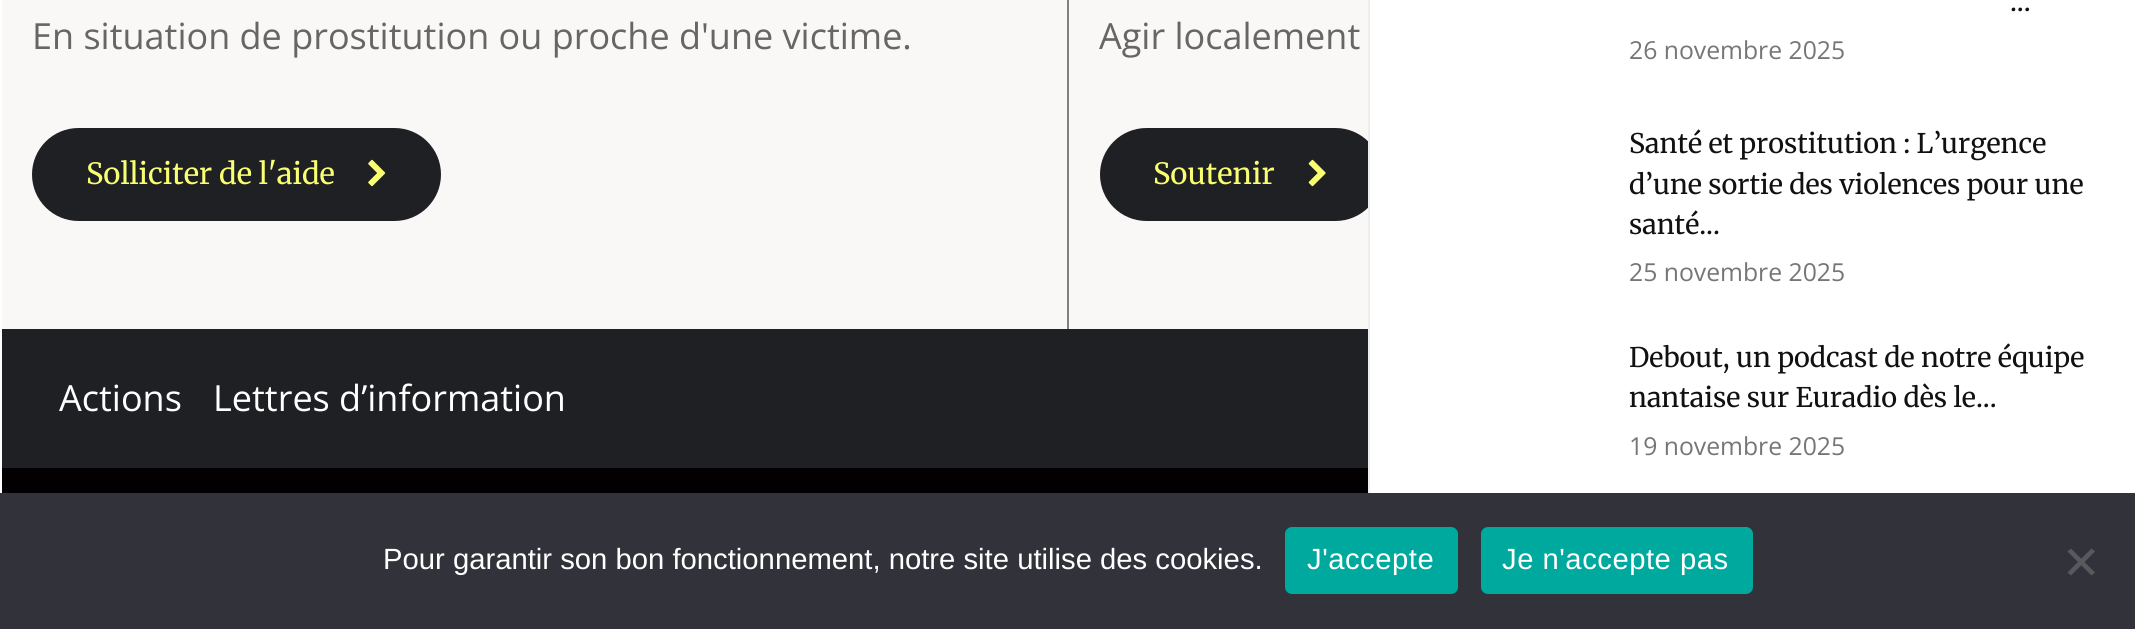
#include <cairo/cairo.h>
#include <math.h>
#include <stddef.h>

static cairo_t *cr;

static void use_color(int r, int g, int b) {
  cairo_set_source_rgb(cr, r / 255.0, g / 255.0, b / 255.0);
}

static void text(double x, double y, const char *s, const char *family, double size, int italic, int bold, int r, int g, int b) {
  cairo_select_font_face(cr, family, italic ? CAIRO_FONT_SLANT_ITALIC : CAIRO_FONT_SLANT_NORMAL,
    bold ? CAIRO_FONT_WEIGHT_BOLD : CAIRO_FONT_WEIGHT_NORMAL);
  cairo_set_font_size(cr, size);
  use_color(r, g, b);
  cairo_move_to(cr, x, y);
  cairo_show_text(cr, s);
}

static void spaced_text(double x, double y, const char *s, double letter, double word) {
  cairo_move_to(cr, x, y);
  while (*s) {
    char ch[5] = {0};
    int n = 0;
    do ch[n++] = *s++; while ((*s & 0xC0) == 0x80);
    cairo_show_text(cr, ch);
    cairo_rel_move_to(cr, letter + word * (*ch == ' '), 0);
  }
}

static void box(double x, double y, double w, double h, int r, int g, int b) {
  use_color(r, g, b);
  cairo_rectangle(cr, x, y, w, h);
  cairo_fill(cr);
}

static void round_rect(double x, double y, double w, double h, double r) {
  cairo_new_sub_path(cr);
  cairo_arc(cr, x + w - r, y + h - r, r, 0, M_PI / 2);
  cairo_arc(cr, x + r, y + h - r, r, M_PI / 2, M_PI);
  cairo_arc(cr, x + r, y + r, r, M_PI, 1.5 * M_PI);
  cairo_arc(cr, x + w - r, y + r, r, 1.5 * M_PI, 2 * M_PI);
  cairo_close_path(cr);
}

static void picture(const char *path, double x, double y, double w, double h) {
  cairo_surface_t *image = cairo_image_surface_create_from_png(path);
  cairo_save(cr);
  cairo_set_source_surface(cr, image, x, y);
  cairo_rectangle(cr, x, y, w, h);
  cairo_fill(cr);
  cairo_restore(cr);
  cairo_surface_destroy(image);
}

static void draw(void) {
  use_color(255, 255, 255);
  cairo_paint(cr);
  box(2, 0, 1366, 329, 250, 248, 247);
  box(1067, 0, 2, 329, 133, 127, 133);
  use_color(31, 32, 35);
  round_rect(32, 128, 409, 93, 46.5);
  cairo_fill(cr);
  picture("img_01.png", 368, 159, 18, 28);
  round_rect(1100, 128, 282, 93, 46.5);
  cairo_fill(cr);
  picture("img_02.png", 1308, 159, 18, 28);
  box(2, 329, 1366, 139, 31, 32, 35);
  box(2, 468, 1366, 25, 2, 0, 0);
  box(1370, 143, 12, 63, 255, 255, 255);
  box(1368, 0, 2, 493, 237, 237, 237);
  box(0, 493, 2135, 136, 50, 50, 58);
  use_color(0, 169, 157);
  round_rect(1285, 527, 173, 67, 7);
  cairo_fill(cr);
  round_rect(1481, 527, 272, 67, 7);
  cairo_fill(cr);
  use_color(89, 89, 93);
  cairo_new_path(cr);
  cairo_move_to(cr, 2091.5, 548.5);
  cairo_line_to(cr, 2095, 551.5);
  cairo_line_to(cr, 2071, 575.5);
  cairo_line_to(cr, 2067.5, 572.5);
  cairo_close_path(cr);
  cairo_fill(cr);
  cairo_new_path(cr);
  cairo_move_to(cr, 2067.5, 551.5);
  cairo_line_to(cr, 2071, 548.5);
  cairo_line_to(cr, 2095, 572.5);
  cairo_line_to(cr, 2091.5, 575.5);
  cairo_close_path(cr);
  cairo_fill(cr);
  text(32, 49, "En situation de prostitution ou proche d'une victime.", "Open Sans", 36, 0, 0, 102, 102, 102);
  text(86, 184, "Solliciter de l'aide", "Merriweather Light", 29.25, 0, 0, 250, 255, 113);
  text(1099, 49, "Agir localement", "Open Sans", 36, 0, 0, 102, 102, 102);
  text(1153, 184, "Soutenir", "Merriweather Light", 29.25, 0, 0, 250, 255, 113);
  text(59, 411, "Actions", "Open Sans", 36, 0, 0, 255, 255, 255);
  text(213, 411, "Lettres d’information", "Open Sans", 36, 0, 0, 255, 255, 255);
  text(2010, 11, "...", "Merriweather Light", 27, 0, 0, 17, 17, 17);
  text(1629, 59, "26 novembre 2025", "Open Sans", 24.75, 0, 0, 118, 118, 118);
  text(1629, 153, "Santé et prostitution : L’urgence", "Merriweather Light", 27, 0, 0, 17, 17, 17);
  text(1629, 194, "d’une sortie des violences pour une", "Merriweather Light", 27, 0, 0, 17, 17, 17);
  text(1629, 234, "santé...", "Merriweather Light", 27, 0, 0, 17, 17, 17);
  text(1629, 281, "25 novembre 2025", "Open Sans", 24.75, 0, 0, 118, 118, 118);
  text(1629, 367, "Debout, un podcast de notre équipe", "Merriweather Light", 27, 0, 0, 17, 17, 17);
  text(1629, 407, "nantaise sur Euradio dès le...", "Merriweather Light", 27, 0, 0, 17, 17, 17);
  text(1629, 455, "19 novembre 2025", "Open Sans", 24.75, 0, 0, 118, 118, 118);
  text(383, 569, "Pour garantir son bon fonctionnement, notre site utilise des cookies.", "Liberation Sans", 29.25, 0, 0, 255, 255, 255);
  spaced_text(1307, 569, "J'accepte", 0.5, 0);
  spaced_text(1502, 569, "Je n'accepte pas", 0.5, 0);
}

int main(void) {
  cairo_surface_t *surface = cairo_image_surface_create(CAIRO_FORMAT_RGB24, 2135, 629);
  cr = cairo_create(surface);
  cairo_font_options_t *options = cairo_font_options_create();
  cairo_font_options_set_hint_metrics(options, CAIRO_HINT_METRICS_OFF);
  cairo_font_options_set_hint_style(options, CAIRO_HINT_STYLE_NONE);
  cairo_set_font_options(cr, options);
  cairo_set_miter_limit(cr, 4);
  draw();
  cairo_surface_write_to_png(surface, "out.png");
  cairo_font_options_destroy(options);
  cairo_destroy(cr);
  cairo_surface_destroy(surface);
  return 0;
}
